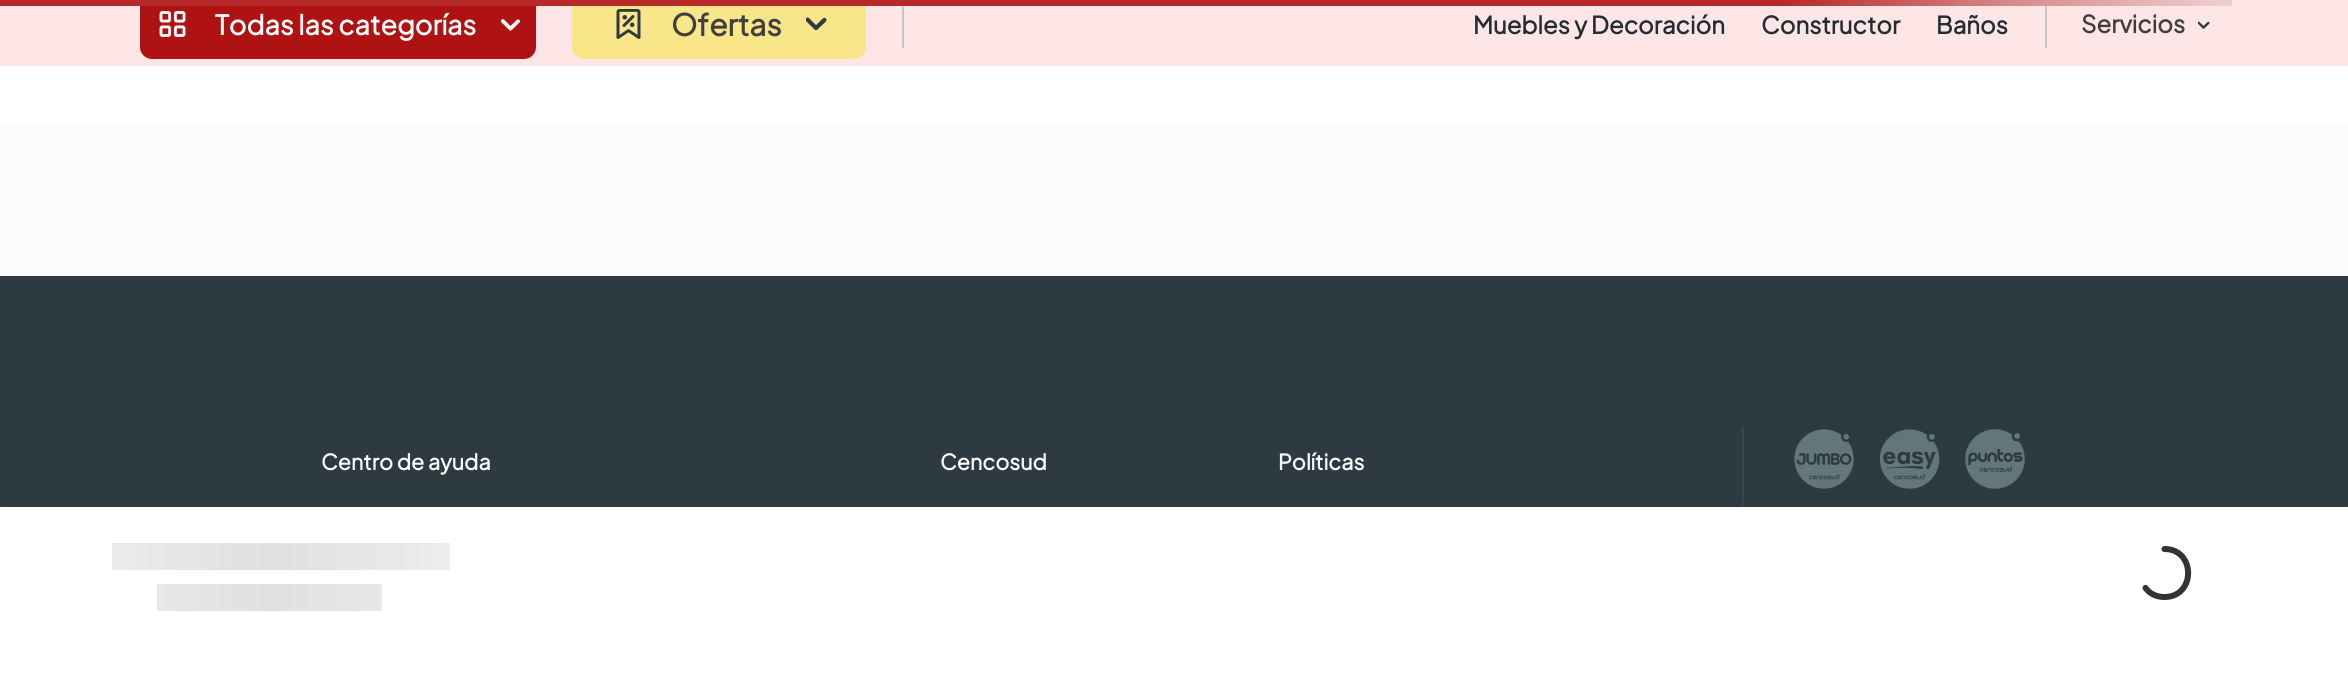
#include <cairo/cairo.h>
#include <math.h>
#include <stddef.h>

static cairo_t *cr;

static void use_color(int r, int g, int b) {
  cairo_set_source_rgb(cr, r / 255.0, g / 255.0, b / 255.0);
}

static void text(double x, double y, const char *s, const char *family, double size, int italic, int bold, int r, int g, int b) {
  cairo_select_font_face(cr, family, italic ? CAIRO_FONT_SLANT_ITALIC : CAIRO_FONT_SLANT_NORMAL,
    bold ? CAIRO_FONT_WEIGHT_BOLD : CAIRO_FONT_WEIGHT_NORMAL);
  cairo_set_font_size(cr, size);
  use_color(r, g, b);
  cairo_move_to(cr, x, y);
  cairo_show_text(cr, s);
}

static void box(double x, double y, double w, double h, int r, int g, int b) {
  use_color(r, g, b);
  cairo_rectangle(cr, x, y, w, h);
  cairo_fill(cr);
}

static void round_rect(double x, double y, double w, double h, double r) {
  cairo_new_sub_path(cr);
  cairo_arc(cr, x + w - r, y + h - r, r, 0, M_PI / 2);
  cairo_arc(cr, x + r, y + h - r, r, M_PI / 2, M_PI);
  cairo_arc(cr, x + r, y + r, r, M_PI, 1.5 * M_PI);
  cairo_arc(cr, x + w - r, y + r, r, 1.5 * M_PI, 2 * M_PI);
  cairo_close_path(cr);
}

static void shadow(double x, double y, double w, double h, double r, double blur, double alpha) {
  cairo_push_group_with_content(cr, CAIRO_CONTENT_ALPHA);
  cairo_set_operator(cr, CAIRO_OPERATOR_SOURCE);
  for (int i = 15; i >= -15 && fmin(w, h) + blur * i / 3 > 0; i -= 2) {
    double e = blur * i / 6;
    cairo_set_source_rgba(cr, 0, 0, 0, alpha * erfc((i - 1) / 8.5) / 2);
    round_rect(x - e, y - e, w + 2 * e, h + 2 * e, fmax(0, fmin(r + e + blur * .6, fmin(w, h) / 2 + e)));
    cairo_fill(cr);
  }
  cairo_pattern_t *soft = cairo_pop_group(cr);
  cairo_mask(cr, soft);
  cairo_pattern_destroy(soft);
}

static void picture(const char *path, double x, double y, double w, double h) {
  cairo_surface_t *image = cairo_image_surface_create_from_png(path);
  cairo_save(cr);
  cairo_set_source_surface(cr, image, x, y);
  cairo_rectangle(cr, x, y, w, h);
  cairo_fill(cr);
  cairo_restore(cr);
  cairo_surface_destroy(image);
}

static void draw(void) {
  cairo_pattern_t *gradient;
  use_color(255, 255, 255);
  cairo_paint(cr);
  box(0, 0, 2348, 66, 255, 230, 230);
  use_color(175, 18, 18);
  round_rect(140, -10, 396, 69, 12);
  cairo_fill(cr);
  use_color(248, 230, 136);
  round_rect(572, -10, 294, 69, 12);
  cairo_fill(cr);
  box(902, 0, 2, 48, 190, 203, 201);
  box(2045, 0, 2, 48, 190, 203, 201);
  gradient = cairo_pattern_create_linear(0, 3, 2232, 3);
  cairo_pattern_add_color_stop_rgba(gradient, 0.8, 0.718, 0.165, 0.165, 1);
  cairo_pattern_add_color_stop_rgba(gradient, 0.9, 0.843, 0.537, 0.537, 1);
  cairo_pattern_add_color_stop_rgba(gradient, 1, 0.937, 0.816, 0.816, 1);
  cairo_set_source(cr, gradient);
  cairo_pattern_destroy(gradient);
  cairo_rectangle(cr, 0, 0, 2232, 6);
  cairo_fill(cr);
  picture("img_01.png", 159, 11, 27, 26);
  picture("img_02.png", 500, 19, 20, 12);
  picture("img_03.png", 616, 9, 25, 30);
  picture("img_04.png", 806, 17, 21, 14);
  picture("img_05.png", 2198, 21, 12, 8);
  box(0, 276, 2348, 231, 45, 58, 65);
  box(0, 126, 2348, 150, 249, 251, 252);
  box(1742, 426, 2, 81, 55, 71, 79);
  picture("img_06.png", 1794, 429, 60, 60);
  picture("img_07.png", 1879, 429, 61, 60);
  picture("img_08.png", 1965, 429, 60, 60);
  use_color(51, 51, 51);
  shadow(0, 507, 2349, 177, 0, 6, 0.16);
  box(0, 507, 2348, 176, 255, 255, 255);
  gradient = cairo_pattern_create_linear(45, 543, 495, 543);
  cairo_pattern_add_color_stop_rgba(gradient, 0, 0.941, 0.941, 0.941, 1);
  cairo_pattern_add_color_stop_rgba(gradient, 0.5, 0.878, 0.878, 0.878, 1);
  cairo_pattern_add_color_stop_rgba(gradient, 1, 0.941, 0.941, 0.941, 1);
  cairo_set_source(cr, gradient);
  cairo_pattern_destroy(gradient);
  cairo_set_fill_rule(cr, CAIRO_FILL_RULE_EVEN_ODD);
  cairo_new_path(cr);
  cairo_move_to(cr, 112, 543);
  cairo_line_to(cr, 112, 570);
  cairo_line_to(cr, 450, 570);
  cairo_line_to(cr, 450, 543);
  cairo_close_path(cr);
  cairo_move_to(cr, 157, 584);
  cairo_line_to(cr, 157, 611);
  cairo_line_to(cr, 382, 611);
  cairo_line_to(cr, 382, 584);
  cairo_close_path(cr);
  cairo_fill(cr);
  cairo_new_path(cr);
  cairo_move_to(cr, 2164.5, 549);
  cairo_curve_to(cr, 2196, 549, 2196, 597, 2164.5, 597);
  cairo_curve_to(cr, 2133, 597, 2133, 549, 2164.5, 549);
  cairo_close_path(cr);
  use_color(51, 51, 51);
  cairo_set_line_width(cr, 6);
  cairo_set_line_cap(cr, CAIRO_LINE_CAP_ROUND);
  cairo_set_dash(cr, (double[]){0, 0, 98.02, 150.8}, 4, 0.6);
  cairo_stroke(cr);
  text(215, 35, "Todas las categorías", "Plus Jakarta Sans", 27, 0, 1, 255, 255, 255);
  text(671, 36, "Ofertas", "Plus Jakarta Sans", 30, 0, 1, 63, 63, 64);
  text(1473, 34, "Muebles y Decoración", "Plus Jakarta Sans", 24, 0, 1, 35, 45, 52);
  text(1761, 34, "Constructor", "Plus Jakarta Sans", 24, 0, 1, 35, 45, 52);
  text(1936, 34, "Baños", "Plus Jakarta Sans", 24, 0, 1, 35, 45, 52);
  text(2081, 33, "Servicios", "Plus Jakarta Sans", 24, 0, 1, 63, 63, 64);
  text(321, 470, "Centro de ayuda", "Plus Jakarta Sans", 21.5, 0, 1, 249, 251, 252);
  text(940, 470, "Cencosud", "Plus Jakarta Sans", 21.5, 0, 1, 249, 251, 252);
  text(1278, 470, "Políticas", "Plus Jakarta Sans", 21.5, 0, 1, 249, 251, 252);
}

int main(void) {
  cairo_surface_t *surface = cairo_image_surface_create(CAIRO_FORMAT_RGB24, 2348, 683);
  cr = cairo_create(surface);
  cairo_font_options_t *options = cairo_font_options_create();
  cairo_font_options_set_hint_metrics(options, CAIRO_HINT_METRICS_OFF);
  cairo_font_options_set_hint_style(options, CAIRO_HINT_STYLE_NONE);
  cairo_set_font_options(cr, options);
  cairo_set_miter_limit(cr, 4);
  draw();
  cairo_surface_write_to_png(surface, "out.png");
  cairo_font_options_destroy(options);
  cairo_destroy(cr);
  cairo_surface_destroy(surface);
  return 0;
}
